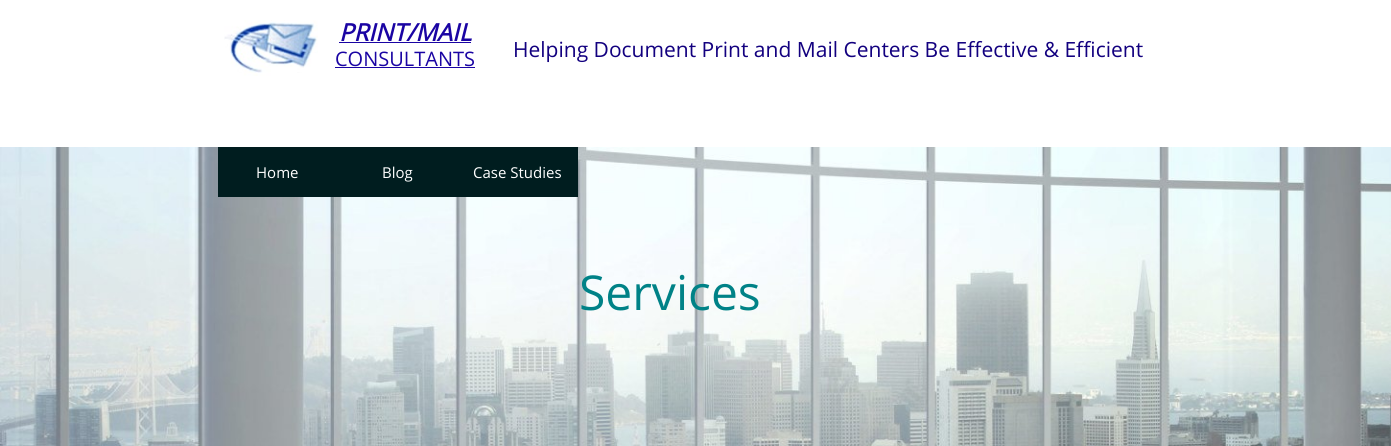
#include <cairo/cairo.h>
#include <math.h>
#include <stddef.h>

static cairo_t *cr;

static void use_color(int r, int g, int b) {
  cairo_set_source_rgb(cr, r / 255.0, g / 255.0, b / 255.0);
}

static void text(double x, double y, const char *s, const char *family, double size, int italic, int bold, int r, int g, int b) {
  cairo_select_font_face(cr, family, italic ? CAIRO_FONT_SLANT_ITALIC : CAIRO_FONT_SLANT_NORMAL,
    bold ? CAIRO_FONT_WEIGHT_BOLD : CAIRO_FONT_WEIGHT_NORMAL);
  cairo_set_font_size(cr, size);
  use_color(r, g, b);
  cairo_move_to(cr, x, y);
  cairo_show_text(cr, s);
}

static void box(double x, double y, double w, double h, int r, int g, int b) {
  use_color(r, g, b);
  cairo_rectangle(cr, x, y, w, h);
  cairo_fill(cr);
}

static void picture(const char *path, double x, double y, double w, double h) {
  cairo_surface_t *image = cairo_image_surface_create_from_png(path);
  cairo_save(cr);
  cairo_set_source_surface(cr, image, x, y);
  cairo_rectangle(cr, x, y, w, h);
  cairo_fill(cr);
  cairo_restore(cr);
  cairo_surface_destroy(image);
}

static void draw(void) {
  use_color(255, 255, 255);
  cairo_paint(cr);
  picture("img_01.png", 224, 20, 94, 56);
  box(339, 42, 132, 1, 26, 4, 163);
  box(335, 67, 140, 1, 26, 4, 163);
  picture("img_02.png", 0, 147, 1391, 299);
  box(218, 147, 360, 50, 0, 29, 31);
  text(339, 41, "PRINT/MAIL", "Open Sans", 24, 1, 1, 26, 4, 163);
  text(335, 66, "CONSULTANTS", "Open Sans", 20, 0, 0, 26, 4, 163);
  text(513, 57, "Helping Document Print and Mail Centers Be Effective & Efficient", "Open Sans", 21, 0, 0, 18, 0, 127);
  text(256, 178, "Home", "Open Sans", 15, 0, 0, 255, 255, 255);
  text(382, 178, "Blog", "Open Sans", 15, 0, 0, 255, 255, 255);
  text(473, 178, "Case Studies", "Open Sans", 15, 0, 0, 255, 255, 255);
  text(579, 310, "Services", "Open Sans", 48, 0, 0, 0, 130, 135);
}

int main(void) {
  cairo_surface_t *surface = cairo_image_surface_create(CAIRO_FORMAT_RGB24, 1391, 446);
  cr = cairo_create(surface);
  cairo_font_options_t *options = cairo_font_options_create();
  cairo_font_options_set_hint_metrics(options, CAIRO_HINT_METRICS_OFF);
  cairo_font_options_set_hint_style(options, CAIRO_HINT_STYLE_NONE);
  cairo_set_font_options(cr, options);
  cairo_set_miter_limit(cr, 4);
  draw();
  cairo_surface_write_to_png(surface, "out.png");
  cairo_font_options_destroy(options);
  cairo_destroy(cr);
  cairo_surface_destroy(surface);
  return 0;
}
